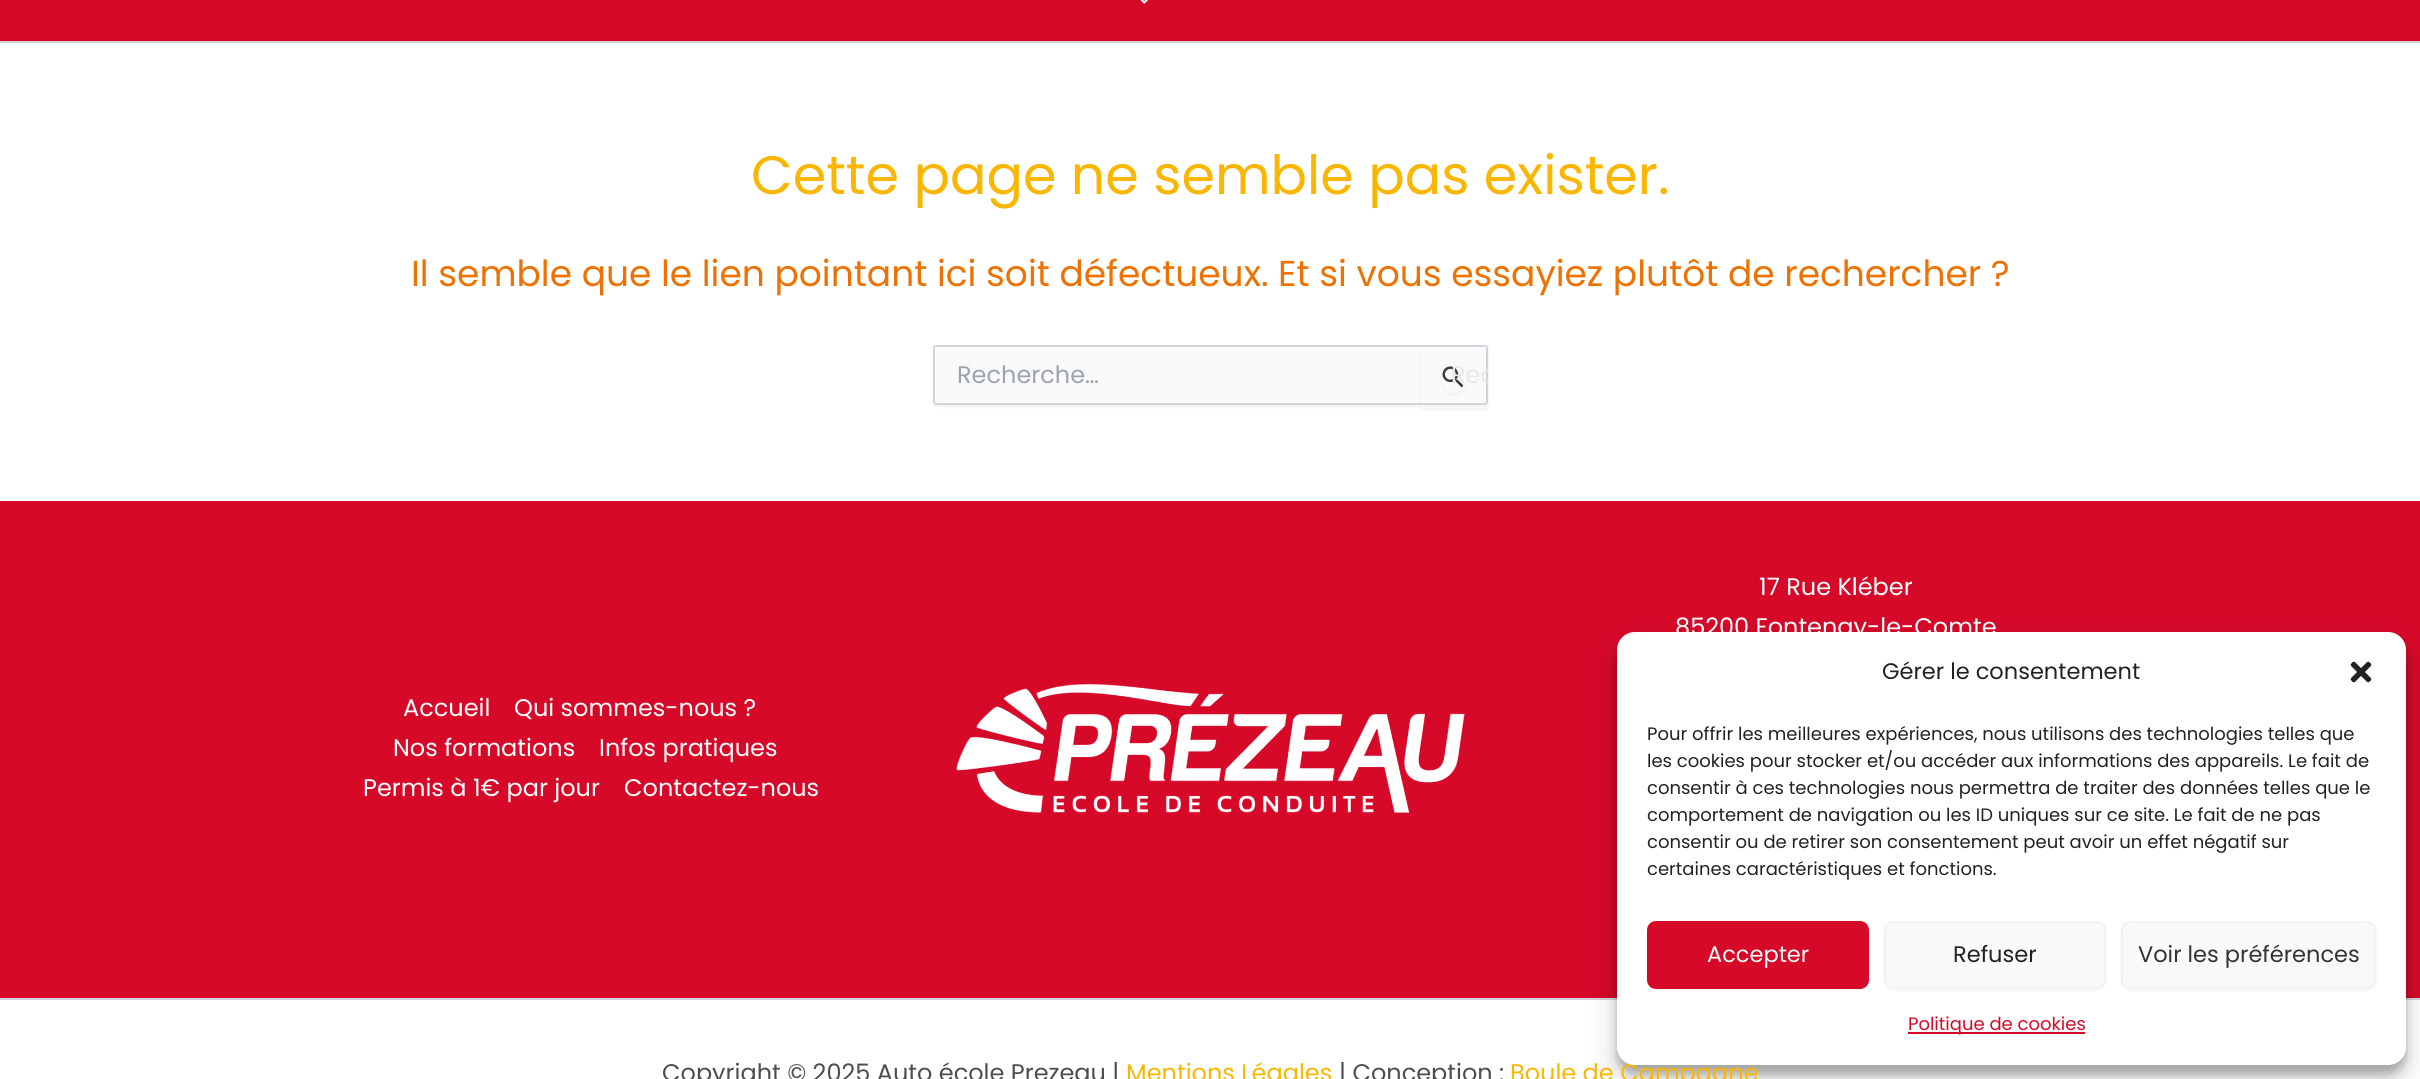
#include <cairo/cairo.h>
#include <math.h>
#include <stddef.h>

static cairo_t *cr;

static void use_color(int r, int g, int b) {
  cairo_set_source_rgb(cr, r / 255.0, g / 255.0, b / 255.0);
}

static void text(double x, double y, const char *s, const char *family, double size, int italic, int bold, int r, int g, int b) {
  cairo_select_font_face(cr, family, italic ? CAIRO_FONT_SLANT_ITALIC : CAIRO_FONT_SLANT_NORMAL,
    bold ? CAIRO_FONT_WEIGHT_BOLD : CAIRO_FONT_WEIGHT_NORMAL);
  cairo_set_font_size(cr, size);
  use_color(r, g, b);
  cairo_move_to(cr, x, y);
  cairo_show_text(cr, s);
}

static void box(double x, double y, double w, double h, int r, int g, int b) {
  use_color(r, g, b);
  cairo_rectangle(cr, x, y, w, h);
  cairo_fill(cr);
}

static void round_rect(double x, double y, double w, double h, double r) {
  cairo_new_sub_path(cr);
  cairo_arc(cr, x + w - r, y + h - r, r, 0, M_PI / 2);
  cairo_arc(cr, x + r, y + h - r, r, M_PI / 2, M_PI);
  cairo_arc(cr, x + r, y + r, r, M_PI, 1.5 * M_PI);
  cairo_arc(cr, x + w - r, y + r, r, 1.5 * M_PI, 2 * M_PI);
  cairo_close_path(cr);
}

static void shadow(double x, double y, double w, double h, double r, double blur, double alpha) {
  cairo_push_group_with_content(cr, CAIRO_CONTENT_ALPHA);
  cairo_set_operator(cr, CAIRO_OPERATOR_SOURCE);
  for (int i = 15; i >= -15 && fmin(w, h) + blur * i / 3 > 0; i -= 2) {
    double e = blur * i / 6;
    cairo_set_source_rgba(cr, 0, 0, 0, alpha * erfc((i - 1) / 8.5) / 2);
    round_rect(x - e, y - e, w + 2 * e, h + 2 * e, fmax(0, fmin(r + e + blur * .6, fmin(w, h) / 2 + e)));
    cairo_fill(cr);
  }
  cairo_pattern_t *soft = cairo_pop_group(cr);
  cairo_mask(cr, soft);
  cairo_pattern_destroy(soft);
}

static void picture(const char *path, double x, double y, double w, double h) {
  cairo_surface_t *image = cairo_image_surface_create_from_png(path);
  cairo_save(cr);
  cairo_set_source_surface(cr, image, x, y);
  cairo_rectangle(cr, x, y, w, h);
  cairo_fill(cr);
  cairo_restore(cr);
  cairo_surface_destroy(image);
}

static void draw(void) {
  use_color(255, 255, 255);
  cairo_paint(cr);
  box(0, 0, 2420, 41, 215, 9, 41);
  box(0, 41, 2420, 2, 209, 213, 219);
  picture("img_01.png", 1140, 0, 8, 4);
  use_color(0, 0, 0);
  shadow(933, 347, 555, 60, 3, 1.5, 0.05);
  use_color(250, 250, 250);
  round_rect(934, 346, 553, 58, 2);
  cairo_fill_preserve(cr);
  use_color(209, 213, 219);
  cairo_stroke(cr);
  cairo_save(cr);
  cairo_set_fill_rule(cr, CAIRO_FILL_RULE_EVEN_ODD);
  cairo_new_path(cr);
  cairo_move_to(cr, 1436, 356);
  cairo_line_to(cr, 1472, 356);
  cairo_line_to(cr, 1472, 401);
  cairo_line_to(cr, 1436, 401);
  cairo_close_path(cr);
  cairo_move_to(cr, 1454, 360);
  cairo_curve_to(cr, 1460.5, 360, 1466, 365.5, 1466, 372);
  cairo_line_to(cr, 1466, 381);
  cairo_curve_to(cr, 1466, 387.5, 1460.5, 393, 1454, 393);
  cairo_curve_to(cr, 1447.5, 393, 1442, 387.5, 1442, 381);
  cairo_line_to(cr, 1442, 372);
  cairo_curve_to(cr, 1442, 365.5, 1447.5, 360, 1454, 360);
  cairo_close_path(cr);
  cairo_clip(cr);
  use_color(0, 0, 0);
  shadow(1442, 362, 24, 33, 12, 1.5, 0.05);
  cairo_restore(cr);
  picture("img_02.png", 1442, 366, 21, 22);
  cairo_save(cr);
  cairo_set_fill_rule(cr, CAIRO_FILL_RULE_EVEN_ODD);
  cairo_new_path(cr);
  cairo_move_to(cr, 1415, 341);
  cairo_line_to(cr, 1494, 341);
  cairo_line_to(cr, 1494, 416);
  cairo_line_to(cr, 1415, 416);
  cairo_close_path(cr);
  cairo_move_to(cr, 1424, 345);
  cairo_line_to(cr, 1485, 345);
  cairo_curve_to(cr, 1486.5, 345, 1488, 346.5, 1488, 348);
  cairo_line_to(cr, 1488, 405);
  cairo_curve_to(cr, 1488, 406.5, 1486.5, 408, 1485, 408);
  cairo_line_to(cr, 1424, 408);
  cairo_curve_to(cr, 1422.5, 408, 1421, 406.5, 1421, 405);
  cairo_line_to(cr, 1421, 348);
  cairo_curve_to(cr, 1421, 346.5, 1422.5, 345, 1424, 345);
  cairo_close_path(cr);
  cairo_clip(cr);
  use_color(0, 0, 0);
  shadow(1421, 347, 67, 63, 3, 1.5, 0.05);
  cairo_restore(cr);
  box(0, 501, 2420, 497, 215, 9, 41);
  picture("img_03.png", 956, 684, 509, 129);
  box(0, 998, 2420, 2, 209, 213, 219);
  use_color(0, 0, 0);
  shadow(1617, 641, 789, 433, 18, 4.5, 0.23);
  shadow(1617, 647, 789, 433, 18, 15, 0.19);
  text(751, 194, "Cette page ne semble pas exister.", "Poppins", 54, 0, 0, 250, 182, 0);
  text(411, 286, "Il semble que le lien pointant ici soit défectueux. Et si vous essayiez plutôt de rechercher ?", "Poppins", 36, 0, 0, 238, 114, 3);
  text(957, 383, "Recherche…", "Poppins", 24, 0, 0, 156, 163, 175);
  cairo_save(cr);
  round_rect(1421, 345, 67, 63, 3);
  cairo_clip(cr);
  text(1451, 383, "Rec", "Poppins", 24, 0, 0, 233, 233, 234);
  cairo_restore(cr);
  text(1759, 595, "17 Rue Kléber", "Poppins", 24, 0, 0, 255, 255, 255);
  text(1675, 635, "85200 Fontenay-le-Comte", "Poppins", 24, 0, 0, 255, 255, 255);
  text(403, 716, "Accueil", "Poppins", 24, 0, 0, 255, 255, 255);
  text(514, 716, "Qui sommes-nous ?", "Poppins", 24, 0, 0, 255, 255, 255);
  text(393, 756, "Nos formations", "Poppins", 24, 0, 0, 255, 255, 255);
  text(599, 756, "Infos pratiques", "Poppins", 24, 0, 0, 255, 255, 255);
  text(363, 796, "Permis à 1€ par jour", "Poppins", 24, 0, 0, 255, 255, 255);
  text(624, 796, "Contactez-nous", "Poppins", 24, 0, 0, 255, 255, 255);
  text(662, 1081, "Copyright © 2025 Auto école Prezeau |", "Poppins", 24, 0, 0, 80, 78, 77);
  text(1126, 1081, "Mentions Légales", "Poppins", 24, 0, 0, 250, 182, 0);
  text(1339, 1081, "| Conception :", "Poppins", 24, 0, 0, 80, 78, 77);
  text(1510, 1081, "Boule de Campagne", "Poppins", 24, 0, 0, 250, 182, 0);
  use_color(255, 255, 255);
  round_rect(1617, 632, 789, 433, 18);
  cairo_fill(cr);
  text(1882, 679, "Gérer le consentement", "Poppins", 22.5, 0, 0, 34, 34, 34);
  picture("img_04.png", 2350, 661, 22, 22);
  text(1647, 740, "Pour offrir les meilleures expériences, nous utilisons des technologies telles que", "Poppins", 18, 0, 0, 34, 34, 34);
  text(1647, 767, "les cookies pour stocker et/ou accéder aux informations des appareils. Le fait de", "Poppins", 18, 0, 0, 34, 34, 34);
  text(1647, 794, "consentir à ces technologies nous permettra de traiter des données telles que le", "Poppins", 18, 0, 0, 34, 34, 34);
  text(1647, 821, "comportement de navigation ou les ID uniques sur ce site. Le fait de ne pas", "Poppins", 18, 0, 0, 34, 34, 34);
  text(1647, 848, "consentir ou de retirer son consentement peut avoir un effet négatif sur", "Poppins", 18, 0, 0, 34, 34, 34);
  text(1647, 875, "certaines caractéristiques et fonctions.", "Poppins", 18, 0, 0, 34, 34, 34);
  use_color(0, 0, 0);
  shadow(1647, 923, 222, 67, 9, 1.5, 0.05);
  use_color(215, 9, 41);
  round_rect(1648, 922, 220, 66, 8);
  cairo_fill_preserve(cr);
  cairo_stroke(cr);
  text(1707, 962, "Accepter", "Poppins", 22.5, 0, 0, 255, 255, 255);
  use_color(0, 0, 0);
  shadow(1884, 923, 222, 67, 9, 1.5, 0.05);
  use_color(249, 249, 249);
  round_rect(1885, 922, 220, 66, 8);
  cairo_fill_preserve(cr);
  use_color(242, 242, 242);
  cairo_stroke(cr);
  text(1953, 962, "Refuser", "Poppins", 22.5, 0, 0, 34, 34, 34);
  use_color(0, 0, 0);
  shadow(2121, 923, 255, 67, 9, 1.5, 0.05);
  use_color(249, 249, 249);
  round_rect(2122, 922, 253, 66, 8);
  cairo_fill_preserve(cr);
  use_color(242, 242, 242);
  cairo_stroke(cr);
  text(2138, 962, "Voir les préférences", "Poppins", 22.5, 0, 0, 51, 51, 51);
  box(1908, 1032, 177, 2, 215, 9, 41);
  text(1908, 1030, "Politique de cookies", "Poppins", 18, 0, 0, 215, 9, 41);
}

int main(void) {
  cairo_surface_t *surface = cairo_image_surface_create(CAIRO_FORMAT_RGB24, 2420, 1079);
  cr = cairo_create(surface);
  cairo_font_options_t *options = cairo_font_options_create();
  cairo_font_options_set_hint_metrics(options, CAIRO_HINT_METRICS_OFF);
  cairo_font_options_set_hint_style(options, CAIRO_HINT_STYLE_NONE);
  cairo_set_font_options(cr, options);
  cairo_set_miter_limit(cr, 4);
  draw();
  cairo_surface_write_to_png(surface, "out.png");
  cairo_font_options_destroy(options);
  cairo_destroy(cr);
  cairo_surface_destroy(surface);
  return 0;
}
